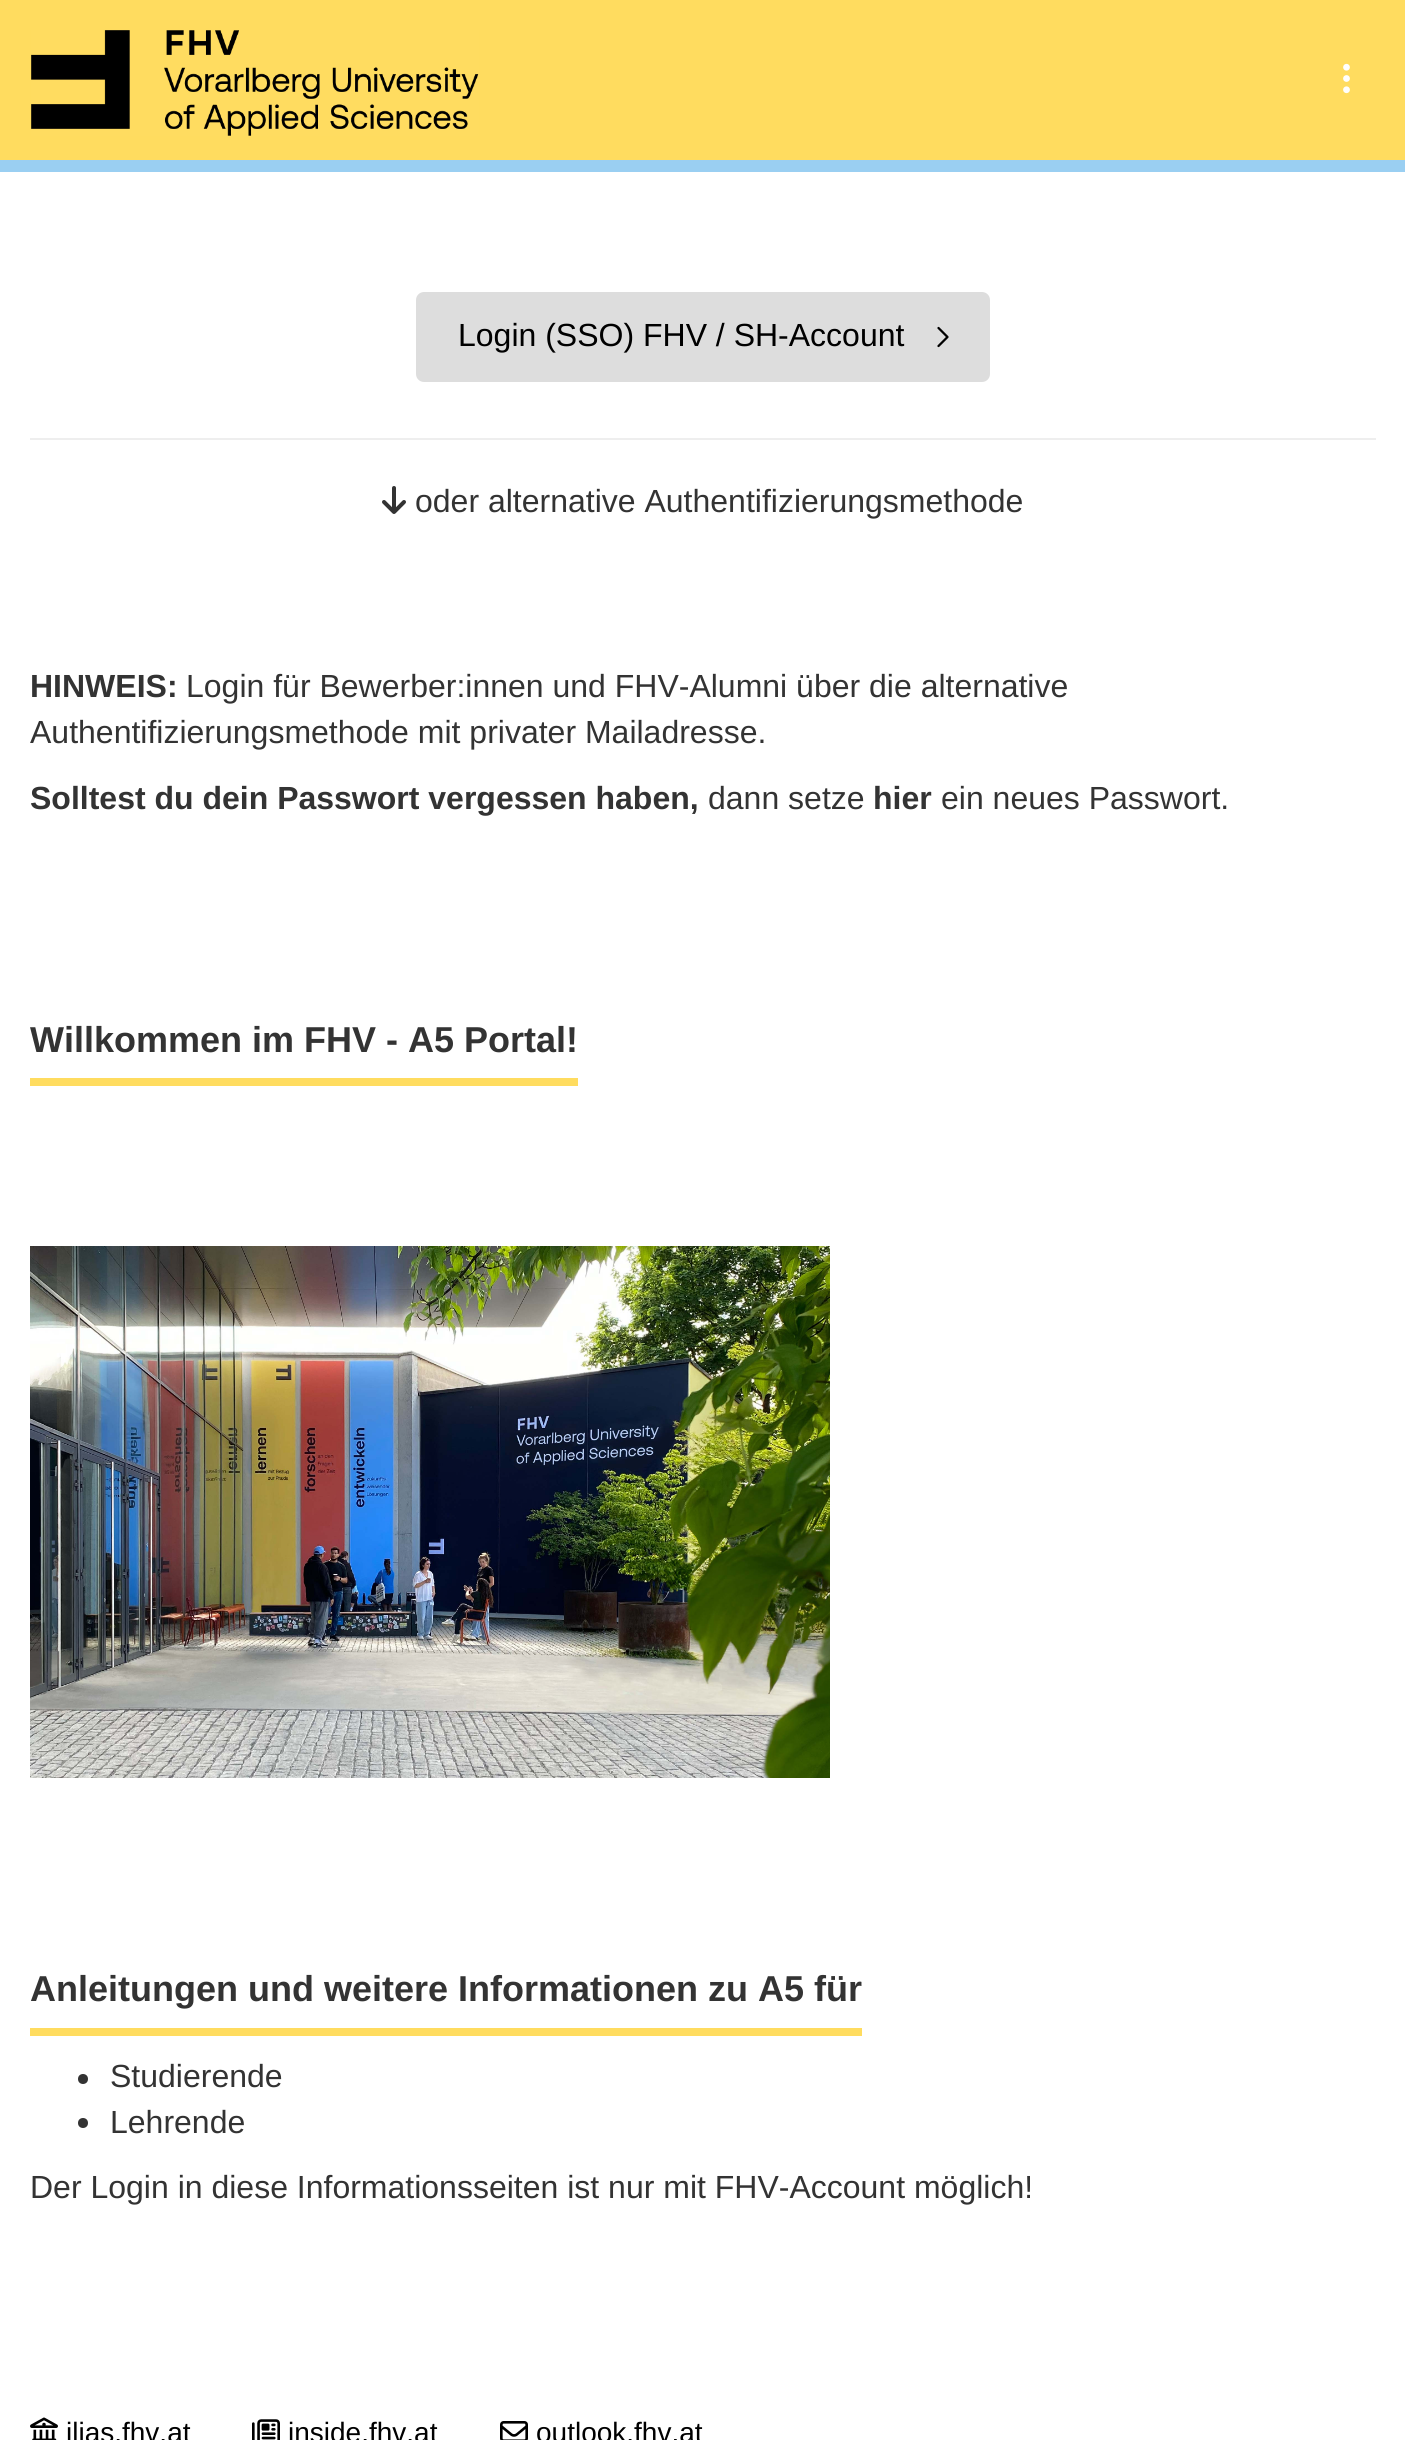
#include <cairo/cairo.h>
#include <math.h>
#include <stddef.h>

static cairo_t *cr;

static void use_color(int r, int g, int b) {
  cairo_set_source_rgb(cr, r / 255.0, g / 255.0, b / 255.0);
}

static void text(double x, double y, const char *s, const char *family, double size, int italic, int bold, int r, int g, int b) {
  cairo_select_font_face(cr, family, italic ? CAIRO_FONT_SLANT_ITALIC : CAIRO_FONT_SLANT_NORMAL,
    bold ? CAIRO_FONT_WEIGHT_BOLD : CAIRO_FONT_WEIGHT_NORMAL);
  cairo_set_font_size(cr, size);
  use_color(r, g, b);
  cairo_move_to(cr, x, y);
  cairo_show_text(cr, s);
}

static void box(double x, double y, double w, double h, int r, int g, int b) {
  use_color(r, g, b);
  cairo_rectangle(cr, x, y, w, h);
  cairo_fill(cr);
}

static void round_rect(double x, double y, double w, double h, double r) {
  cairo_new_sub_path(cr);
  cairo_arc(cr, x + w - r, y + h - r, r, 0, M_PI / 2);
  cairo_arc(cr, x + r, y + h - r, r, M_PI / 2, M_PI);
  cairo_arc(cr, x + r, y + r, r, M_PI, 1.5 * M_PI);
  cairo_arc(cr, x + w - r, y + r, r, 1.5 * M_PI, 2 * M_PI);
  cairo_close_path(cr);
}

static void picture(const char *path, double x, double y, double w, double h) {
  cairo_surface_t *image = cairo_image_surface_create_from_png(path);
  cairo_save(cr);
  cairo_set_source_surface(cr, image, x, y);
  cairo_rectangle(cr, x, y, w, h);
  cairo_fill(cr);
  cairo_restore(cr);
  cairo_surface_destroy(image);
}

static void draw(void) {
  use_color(255, 255, 255);
  cairo_paint(cr);
  box(0, 0, 1405, 160, 255, 220, 95);
  picture("img_01.png", 31, 30, 448, 106);
  box(0, 160, 1405, 12, 154, 207, 242);
  picture("img_02.png", 1343, 63, 7, 31);
  use_color(221, 221, 221);
  round_rect(416, 292, 574, 90, 8);
  cairo_fill(cr);
  picture("img_03.png", 937, 326, 12, 22);
  box(30, 438, 1346, 2, 238, 238, 238);
  picture("img_04.png", 382, 486, 24, 28);
  box(30, 1078, 548, 8, 255, 220, 95);
  picture("img_05.png", 30, 1246, 800, 532);
  box(30, 2028, 832, 8, 255, 220, 95);
  use_color(51, 51, 51);
  cairo_arc(cr, 83, 2079, 5, 0, 2 * M_PI);
  cairo_fill(cr);
  cairo_arc(cr, 83, 2123, 5, 0, 2 * M_PI);
  cairo_fill(cr);
  picture("img_06.png", 30, 2417, 28, 23);
  picture("img_07.png", 252, 2419, 28, 21);
  picture("img_08.png", 500, 2421, 28, 19);
  text(458, 346, "Login (SSO) FHV / SH-Account", "Liberation Sans", 32, 0, 0, 0, 0, 0);
  text(415, 512, "oder alternative Authentifizierungsmethode", "Liberation Sans", 32, 0, 0, 51, 51, 51);
  text(30, 697, "HINWEIS:", "Liberation Sans", 32, 0, 1, 51, 51, 51);
  text(186, 697, "Login für Bewerber:innen und FHV-Alumni über die alternative", "Liberation Sans", 32, 0, 0, 51, 51, 51);
  text(30, 743, "Authentifizierungsmethode mit privater Mailadresse.", "Liberation Sans", 32, 0, 0, 51, 51, 51);
  text(30, 809, "Solltest du dein Passwort vergessen haben,", "Liberation Sans", 32, 0, 1, 51, 51, 51);
  text(708, 809, "dann setze", "Liberation Sans", 32, 0, 0, 51, 51, 51);
  text(873, 809, "hier", "Liberation Sans", 32, 0, 1, 51, 51, 51);
  text(941, 809, "ein neues Passwort.", "Liberation Sans", 32, 0, 0, 51, 51, 51);
  text(30, 1052, "Willkommen im FHV - A5 Portal!", "Liberation Sans", 36, 0, 1, 51, 51, 51);
  text(30, 2001, "Anleitungen und weitere Informationen zu A5 für", "Liberation Sans", 36, 0, 1, 51, 51, 51);
  text(110, 2087, "Studierende", "Liberation Sans", 32, 0, 0, 51, 51, 51);
  text(110, 2133, "Lehrende", "Liberation Sans", 32, 0, 0, 51, 51, 51);
  text(30, 2198, "Der Login in diese Informationsseiten ist nur mit FHV-Account möglich!", "Liberation Sans", 32, 0, 0, 51, 51, 51);
  text(66, 2442, "ilias.fhv.at", "Liberation Sans", 28, 0, 0, 0, 0, 0);
  text(288, 2442, "inside.fhv.at", "Liberation Sans", 28, 0, 0, 0, 0, 0);
  text(536, 2442, "outlook.fhv.at", "Liberation Sans", 28, 0, 0, 0, 0, 0);
}

int main(void) {
  cairo_surface_t *surface = cairo_image_surface_create(CAIRO_FORMAT_RGB24, 1405, 2440);
  cr = cairo_create(surface);
  cairo_font_options_t *options = cairo_font_options_create();
  cairo_font_options_set_hint_metrics(options, CAIRO_HINT_METRICS_OFF);
  cairo_font_options_set_hint_style(options, CAIRO_HINT_STYLE_NONE);
  cairo_set_font_options(cr, options);
  cairo_set_miter_limit(cr, 4);
  draw();
  cairo_surface_write_to_png(surface, "out.png");
  cairo_font_options_destroy(options);
  cairo_destroy(cr);
  cairo_surface_destroy(surface);
  return 0;
}
